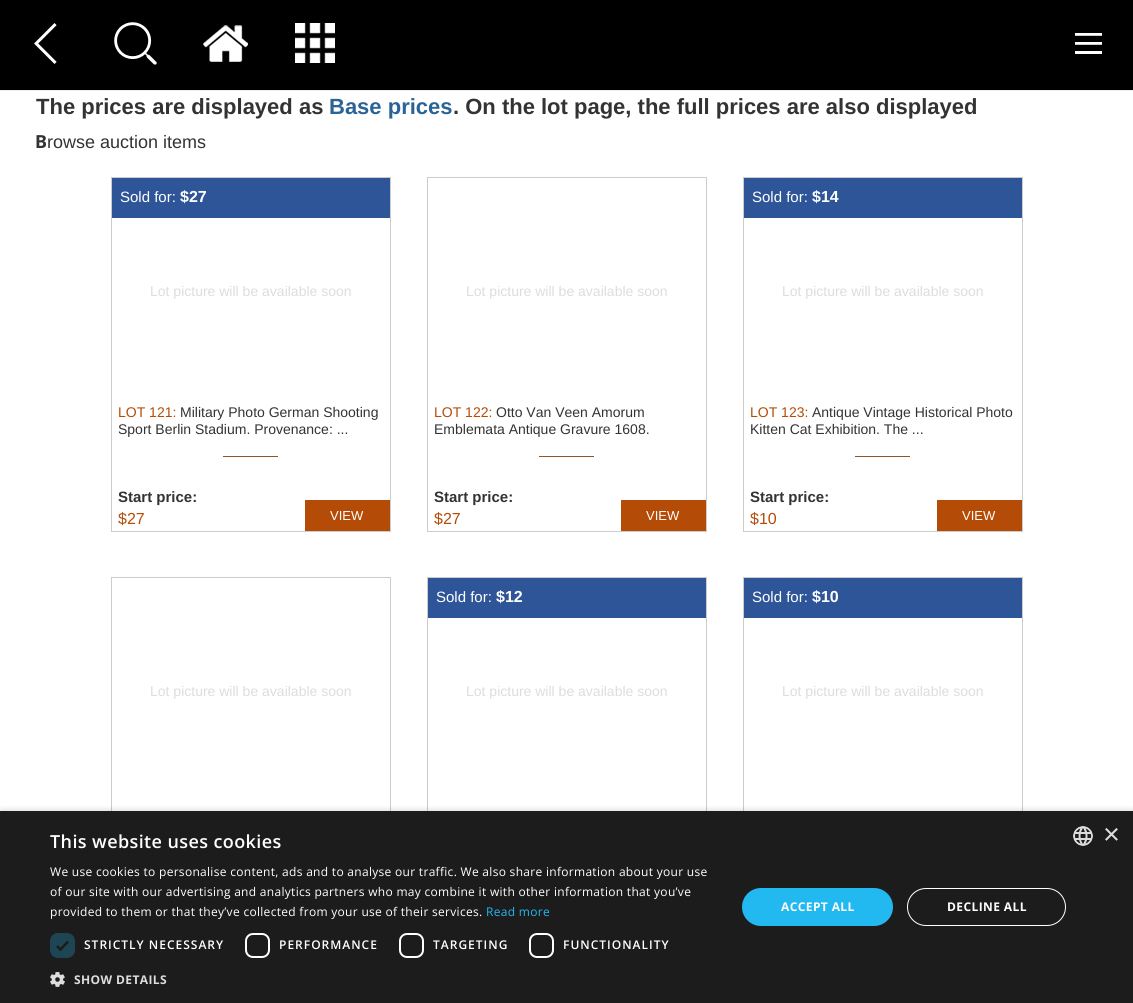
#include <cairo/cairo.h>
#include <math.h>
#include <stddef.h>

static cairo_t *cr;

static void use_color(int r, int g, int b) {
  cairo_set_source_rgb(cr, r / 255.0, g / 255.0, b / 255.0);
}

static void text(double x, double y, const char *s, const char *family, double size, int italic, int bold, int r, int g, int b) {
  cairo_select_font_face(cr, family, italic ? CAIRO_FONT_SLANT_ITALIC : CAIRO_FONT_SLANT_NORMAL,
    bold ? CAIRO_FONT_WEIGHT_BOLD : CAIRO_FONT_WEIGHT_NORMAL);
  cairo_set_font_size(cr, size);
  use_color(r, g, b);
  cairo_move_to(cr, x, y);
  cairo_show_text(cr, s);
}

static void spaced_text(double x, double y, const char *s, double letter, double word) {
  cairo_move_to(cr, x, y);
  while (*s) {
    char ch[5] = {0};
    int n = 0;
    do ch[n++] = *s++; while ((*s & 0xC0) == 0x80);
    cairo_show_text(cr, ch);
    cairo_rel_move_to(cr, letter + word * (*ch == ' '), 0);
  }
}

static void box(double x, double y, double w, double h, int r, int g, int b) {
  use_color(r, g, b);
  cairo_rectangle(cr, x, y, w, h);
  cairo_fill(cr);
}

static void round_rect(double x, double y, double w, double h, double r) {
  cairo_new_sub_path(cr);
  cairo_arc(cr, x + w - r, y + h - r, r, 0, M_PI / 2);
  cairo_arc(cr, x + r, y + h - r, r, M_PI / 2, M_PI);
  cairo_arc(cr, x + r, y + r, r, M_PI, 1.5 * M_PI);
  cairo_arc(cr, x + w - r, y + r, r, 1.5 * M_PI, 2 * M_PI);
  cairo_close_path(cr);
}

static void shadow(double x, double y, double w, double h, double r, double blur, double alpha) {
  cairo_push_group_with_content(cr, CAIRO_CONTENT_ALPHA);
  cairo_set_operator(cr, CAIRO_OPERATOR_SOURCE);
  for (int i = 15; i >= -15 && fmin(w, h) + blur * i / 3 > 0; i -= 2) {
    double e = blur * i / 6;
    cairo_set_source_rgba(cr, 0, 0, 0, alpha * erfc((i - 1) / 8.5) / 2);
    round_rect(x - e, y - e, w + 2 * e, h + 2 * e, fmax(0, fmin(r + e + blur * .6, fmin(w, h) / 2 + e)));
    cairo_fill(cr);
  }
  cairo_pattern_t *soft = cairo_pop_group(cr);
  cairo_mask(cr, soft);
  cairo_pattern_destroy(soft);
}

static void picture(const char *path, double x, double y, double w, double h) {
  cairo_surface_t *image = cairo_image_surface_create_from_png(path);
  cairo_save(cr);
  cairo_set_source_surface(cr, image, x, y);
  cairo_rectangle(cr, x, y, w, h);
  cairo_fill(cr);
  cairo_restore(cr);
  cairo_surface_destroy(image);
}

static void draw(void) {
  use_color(255, 255, 255);
  cairo_paint(cr);
  box(0, 0, 1133, 90, 0, 0, 0);
  box(0, 90, 1133, 1, 238, 238, 238);
  picture("img_01.png", 34, 23, 23, 41);
  picture("img_02.png", 114, 22, 43, 43);
  picture("img_03.png", 203, 25, 45, 37);
  picture("img_04.png", 295, 23, 40, 40);
  picture("img_05.png", 1075, 33, 27, 21);
  cairo_rectangle(cr, 111.5, 177.5, 279, 354);
  use_color(204, 204, 204);
  cairo_set_line_width(cr, 1);
  cairo_stroke(cr);
  box(112, 178, 278, 40, 47, 85, 153);
  box(223, 456, 55, 1, 143, 84, 42);
  box(305, 500, 85, 31, 180, 75, 7);
  cairo_rectangle(cr, 427.5, 177.5, 279, 354);
  use_color(204, 204, 204);
  cairo_stroke(cr);
  box(539, 456, 55, 1, 143, 84, 42);
  box(621, 500, 85, 31, 180, 75, 7);
  cairo_rectangle(cr, 743.5, 177.5, 279, 354);
  use_color(204, 204, 204);
  cairo_stroke(cr);
  box(744, 178, 278, 40, 47, 85, 153);
  box(855, 456, 55, 1, 143, 84, 42);
  box(937, 500, 85, 31, 180, 75, 7);
  cairo_rectangle(cr, 111.5, 577.5, 279, 354);
  use_color(204, 204, 204);
  cairo_stroke(cr);
  cairo_rectangle(cr, 427.5, 577.5, 279, 354);
  cairo_stroke(cr);
  box(428, 578, 278, 40, 47, 85, 153);
  cairo_rectangle(cr, 743.5, 577.5, 279, 354);
  use_color(204, 204, 204);
  cairo_stroke(cr);
  box(744, 578, 278, 40, 47, 85, 153);
  use_color(0, 0, 0);
  shadow(1, 813, 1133, 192, 0, 4, 0.35);
  box(0, 811, 1133, 192, 28, 28, 28);
  use_color(30, 69, 83);
  round_rect(50, 933, 25, 25, 8);
  cairo_fill(cr);
  cairo_new_path(cr);
  cairo_move_to(cr, 57, 946);
  cairo_line_to(cr, 60.5, 949.5);
  cairo_line_to(cr, 68, 941.5);
  use_color(28, 28, 28);
  cairo_set_line_width(cr, 2.6);
  cairo_stroke(cr);
  round_rect(246, 934, 23, 23, 7);
  use_color(255, 255, 255);
  cairo_set_line_width(cr, 2);
  cairo_stroke(cr);
  round_rect(400, 934, 23, 23, 7);
  cairo_stroke(cr);
  round_rect(530, 934, 23, 23, 7);
  cairo_stroke(cr);
  picture("img_06.png", 50, 972, 15, 15);
  use_color(34, 184, 240);
  round_rect(742, 888, 151, 38, 19);
  cairo_fill(cr);
  round_rect(907.5, 888.5, 158, 37, 18.5);
  use_color(255, 255, 255);
  cairo_set_line_width(cr, 1);
  cairo_stroke(cr);
  picture("img_07.png", 1073, 826, 20, 20);
  text(36, 114, "The prices are displayed as", "Liberation Sans", 22, 0, 1, 51, 51, 51);
  text(329, 114, "Base prices", "Liberation Sans", 22, 0, 1, 42, 100, 150);
  text(453, 114, ". On the lot page, the full prices are also displayed", "Liberation Sans", 22, 0, 1, 51, 51, 51);
  text(35, 148, "B", "Noto Sans", 18, 0, 1, 51, 51, 51);
  text(47, 148, "rowse auction items", "Liberation Sans", 18, 0, 0, 51, 51, 51);
  text(120, 202, "Sold for:", "Liberation Sans", 15, 0, 0, 255, 255, 255);
  text(180, 202, "$27", "Liberation Sans", 16, 0, 1, 255, 255, 255);
  text(150, 296, "Lot picture will be available soon", "Liberation Sans", 14, 0, 0, 221, 221, 221);
  text(118, 417, "LOT 121:", "Liberation Sans", 14, 0, 0, 180, 75, 7);
  text(180, 417, "Military Photo German Shooting", "Liberation Sans", 14, 0, 0, 51, 51, 51);
  text(118, 434, "Sport Berlin Stadium. Provenance: ...", "Liberation Sans", 14, 0, 0, 51, 51, 51);
  text(118, 502, "Start price:", "Liberation Sans", 15, 0, 1, 51, 51, 51);
  text(118, 524, "$27", "Liberation Sans", 16, 0, 0, 180, 75, 7);
  text(330, 520, "VIEW", "Liberation Sans", 13, 0, 0, 255, 255, 255);
  text(466, 296, "Lot picture will be available soon", "Liberation Sans", 14, 0, 0, 221, 221, 221);
  text(434, 417, "LOT 122:", "Liberation Sans", 14, 0, 0, 180, 75, 7);
  text(496, 417, "Otto Van Veen Amorum", "Liberation Sans", 14, 0, 0, 51, 51, 51);
  text(434, 434, "Emblemata Antique Gravure 1608.", "Liberation Sans", 14, 0, 0, 51, 51, 51);
  text(434, 502, "Start price:", "Liberation Sans", 15, 0, 1, 51, 51, 51);
  text(434, 524, "$27", "Liberation Sans", 16, 0, 0, 180, 75, 7);
  text(646, 520, "VIEW", "Liberation Sans", 13, 0, 0, 255, 255, 255);
  text(752, 202, "Sold for:", "Liberation Sans", 15, 0, 0, 255, 255, 255);
  text(812, 202, "$14", "Liberation Sans", 16, 0, 1, 255, 255, 255);
  text(782, 296, "Lot picture will be available soon", "Liberation Sans", 14, 0, 0, 221, 221, 221);
  text(750, 417, "LOT 123:", "Liberation Sans", 14, 0, 0, 180, 75, 7);
  text(812, 417, "Antique Vintage Historical Photo", "Liberation Sans", 14, 0, 0, 51, 51, 51);
  text(750, 434, "Kitten Cat Exhibition. The ...", "Liberation Sans", 14, 0, 0, 51, 51, 51);
  text(750, 502, "Start price:", "Liberation Sans", 15, 0, 1, 51, 51, 51);
  text(750, 524, "$10", "Liberation Sans", 16, 0, 0, 180, 75, 7);
  text(962, 520, "VIEW", "Liberation Sans", 13, 0, 0, 255, 255, 255);
  text(150, 696, "Lot picture will be available soon", "Liberation Sans", 14, 0, 0, 221, 221, 221);
  text(436, 602, "Sold for:", "Liberation Sans", 15, 0, 0, 255, 255, 255);
  text(496, 602, "$12", "Liberation Sans", 16, 0, 1, 255, 255, 255);
  text(466, 696, "Lot picture will be available soon", "Liberation Sans", 14, 0, 0, 221, 221, 221);
  text(752, 602, "Sold for:", "Liberation Sans", 15, 0, 0, 255, 255, 255);
  text(812, 602, "$10", "Liberation Sans", 16, 0, 1, 255, 255, 255);
  text(782, 696, "Lot picture will be available soon", "Liberation Sans", 14, 0, 0, 221, 221, 221);
  cairo_select_font_face(cr, "Open Sans SemiBold", CAIRO_FONT_SLANT_NORMAL, CAIRO_FONT_WEIGHT_NORMAL);
  cairo_set_font_size(cr, 18);
  use_color(255, 255, 255);
  spaced_text(50, 848, "This website uses cookies", 0.4, 0);
  cairo_select_font_face(cr, "Open Sans", CAIRO_FONT_SLANT_NORMAL, CAIRO_FONT_WEIGHT_NORMAL);
  cairo_set_font_size(cr, 12);
  spaced_text(50, 876, "We use cookies to personalise content, ads and to analyse our traffic. We also share information about your use", 0.3, 0);
  spaced_text(50, 896, "of our site with our advertising and analytics partners who may combine it with other information that you’ve", 0.3, 0);
  spaced_text(50, 916, "provided to them or that they’ve collected from your use of their services.", 0.3, 0);
  use_color(34, 184, 240);
  spaced_text(486, 916, "Read more", 0.3, 0);
  cairo_select_font_face(cr, "Open Sans SemiBold", CAIRO_FONT_SLANT_NORMAL, CAIRO_FONT_WEIGHT_NORMAL);
  use_color(255, 255, 255);
  spaced_text(84, 949, "STRICTLY NECESSARY", 1, 0);
  spaced_text(279, 949, "PERFORMANCE", 1, 0);
  spaced_text(433, 949, "TARGETING", 1, 0);
  spaced_text(563, 949, "FUNCTIONALITY", 1, 0);
  cairo_select_font_face(cr, "Open Sans", CAIRO_FONT_SLANT_NORMAL, CAIRO_FONT_WEIGHT_BOLD);
  use_color(221, 221, 221);
  spaced_text(74, 984, "SHOW DETAILS", 0.4, 0);
  use_color(255, 255, 255);
  spaced_text(781, 911, "ACCEPT ALL", 0.4, 0);
  spaced_text(947, 911, "DECLINE ALL", 0.4, 0);
  text(1103, 844, "×", "Liberation Sans", 29, 0, 0, 221, 221, 221);
}

int main(void) {
  cairo_surface_t *surface = cairo_image_surface_create(CAIRO_FORMAT_RGB24, 1133, 1003);
  cr = cairo_create(surface);
  cairo_font_options_t *options = cairo_font_options_create();
  cairo_font_options_set_hint_metrics(options, CAIRO_HINT_METRICS_OFF);
  cairo_font_options_set_hint_style(options, CAIRO_HINT_STYLE_NONE);
  cairo_set_font_options(cr, options);
  cairo_set_miter_limit(cr, 4);
  draw();
  cairo_surface_write_to_png(surface, "out.png");
  cairo_font_options_destroy(options);
  cairo_destroy(cr);
  cairo_surface_destroy(surface);
  return 0;
}
